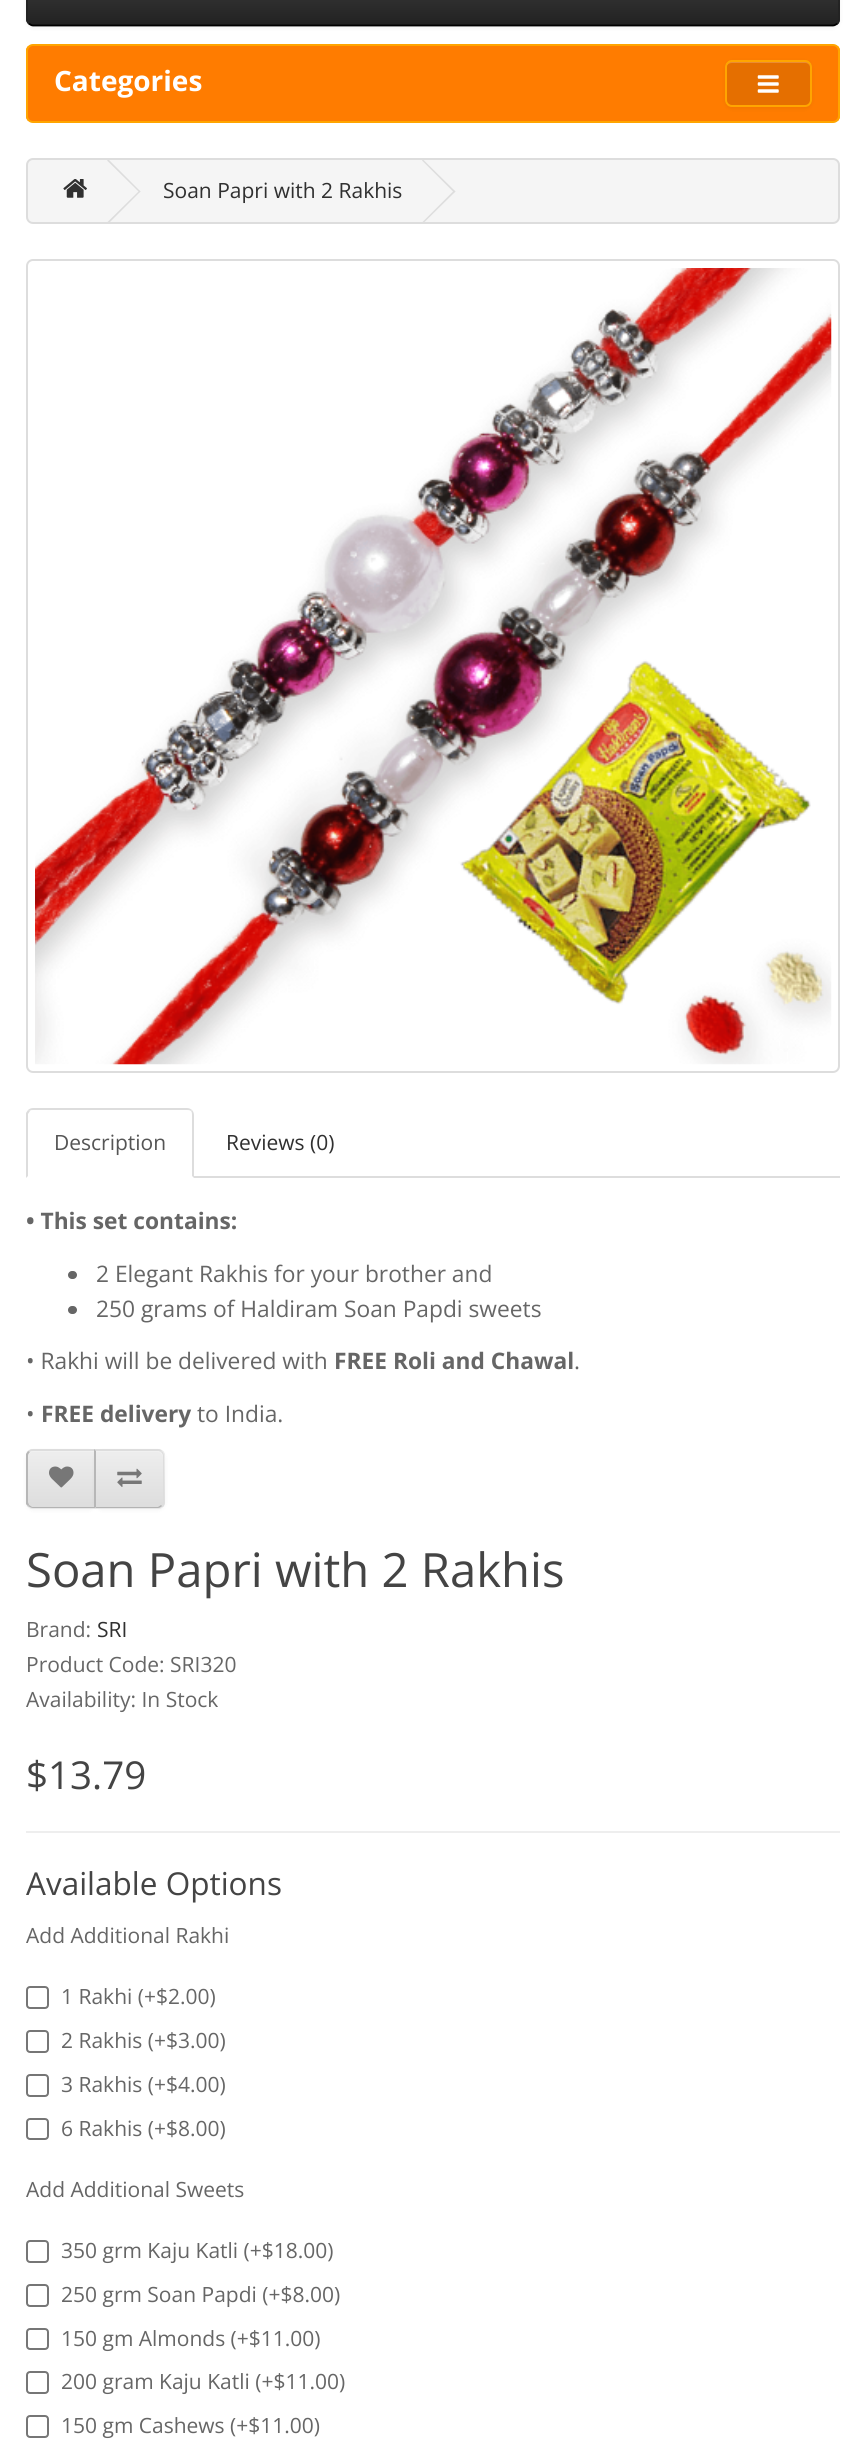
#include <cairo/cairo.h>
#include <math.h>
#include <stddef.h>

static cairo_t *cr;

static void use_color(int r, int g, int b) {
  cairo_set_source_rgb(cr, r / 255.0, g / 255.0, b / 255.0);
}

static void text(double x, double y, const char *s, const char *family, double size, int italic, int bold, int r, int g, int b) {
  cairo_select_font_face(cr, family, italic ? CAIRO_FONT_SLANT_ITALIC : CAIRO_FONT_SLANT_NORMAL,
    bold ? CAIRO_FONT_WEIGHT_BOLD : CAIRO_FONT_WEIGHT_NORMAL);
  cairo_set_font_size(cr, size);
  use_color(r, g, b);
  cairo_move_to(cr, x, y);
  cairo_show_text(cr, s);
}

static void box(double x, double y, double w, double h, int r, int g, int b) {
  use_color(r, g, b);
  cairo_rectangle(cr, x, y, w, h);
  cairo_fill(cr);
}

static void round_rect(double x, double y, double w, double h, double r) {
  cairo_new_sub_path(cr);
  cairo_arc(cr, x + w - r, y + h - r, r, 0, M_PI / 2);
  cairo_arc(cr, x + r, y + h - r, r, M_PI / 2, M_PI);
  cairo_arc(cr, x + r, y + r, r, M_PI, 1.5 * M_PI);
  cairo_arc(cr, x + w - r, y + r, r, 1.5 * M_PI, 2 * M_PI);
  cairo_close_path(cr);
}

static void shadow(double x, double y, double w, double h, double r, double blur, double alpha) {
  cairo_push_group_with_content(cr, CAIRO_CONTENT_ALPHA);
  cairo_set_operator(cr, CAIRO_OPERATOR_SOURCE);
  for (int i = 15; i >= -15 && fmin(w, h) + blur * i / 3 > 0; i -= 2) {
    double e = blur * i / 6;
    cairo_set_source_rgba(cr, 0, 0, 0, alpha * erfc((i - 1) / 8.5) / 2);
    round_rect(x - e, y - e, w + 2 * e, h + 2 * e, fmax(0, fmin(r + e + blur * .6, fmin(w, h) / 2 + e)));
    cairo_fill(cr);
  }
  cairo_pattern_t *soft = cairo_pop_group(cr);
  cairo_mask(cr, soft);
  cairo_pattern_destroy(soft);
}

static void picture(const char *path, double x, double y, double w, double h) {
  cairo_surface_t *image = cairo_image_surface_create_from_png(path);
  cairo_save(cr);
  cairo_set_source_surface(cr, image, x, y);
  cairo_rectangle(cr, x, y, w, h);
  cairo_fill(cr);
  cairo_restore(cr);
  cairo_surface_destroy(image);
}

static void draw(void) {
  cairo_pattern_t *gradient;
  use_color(255, 255, 255);
  cairo_paint(cr);
  use_color(0, 0, 0);
  shadow(26, -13, 814, 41, 7, 2, 0.05);
  cairo_save(cr);
  round_rect(26, -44, 814, 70, 7);
  cairo_clip(cr);
  gradient = cairo_pattern_create_linear(433, -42, 433, 25);
  cairo_pattern_add_color_stop_rgba(gradient, 0, 0.267, 0.267, 0.267, 1);
  cairo_pattern_add_color_stop_rgba(gradient, 1, 0.133, 0.133, 0.133, 1);
  cairo_set_source(cr, gradient);
  cairo_pattern_destroy(gradient);
  cairo_rectangle(cr, 26, 0, 814, 25);
  cairo_fill(cr);
  cairo_restore(cr);
  cairo_new_path(cr);
  cairo_move_to(cr, 837.5, 23.5);
  cairo_curve_to(cr, 836, 24.5, 834.5, 25.5, 833, 25.5);
  cairo_line_to(cr, 33, 25.5);
  cairo_curve_to(cr, 31.5, 25.5, 30, 24.5, 29, 23.5);
  use_color(0, 0, 0);
  cairo_set_line_width(cr, 1.8);
  cairo_stroke(cr);
  cairo_new_path(cr);
  cairo_move_to(cr, 29, 23.5);
  cairo_curve_to(cr, 28, 22.5, 27, 21, 27, 19.5);
  cairo_line_to(cr, 27, -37);
  cairo_curve_to(cr, 27, -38.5, 28, -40, 29, -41);
  cairo_curve_to(cr, 30, -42, 31.5, -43, 33, -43);
  cairo_line_to(cr, 833, -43);
  cairo_curve_to(cr, 834.5, -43, 836, -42, 837.5, -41);
  cairo_curve_to(cr, 838.5, -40, 839, -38.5, 839, -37);
  cairo_line_to(cr, 839, 19);
  cairo_curve_to(cr, 839, 21, 838.5, 22.5, 837.5, 23.5);
  use_color(34, 34, 34);
  cairo_stroke(cr);
  cairo_save(cr);
  round_rect(26, 44, 814, 79, 7);
  cairo_clip(cr);
  box(26, 46, 814, 75, 255, 124, 0);
  cairo_restore(cr);
  round_rect(27, 45, 812, 77, 6);
  use_color(255, 165, 0);
  cairo_set_line_width(cr, 2);
  cairo_stroke(cr);
  use_color(0, 0, 0);
  shadow(725, 61, 87, 48, 7, 2, 0.05);
  cairo_save(cr);
  round_rect(725, 60, 87, 47, 7);
  cairo_clip(cr);
  box(725, 61, 87, 44, 229, 111, 0);
  cairo_restore(cr);
  use_color(234, 140, 51);
  cairo_new_path(cr);
  cairo_move_to(cr, 732, 63);
  cairo_line_to(cr, 805, 63);
  cairo_curve_to(cr, 808, 63, 810, 65, 810, 68);
  cairo_curve_to(cr, 810, 58, 801, 61, 793, 61);
  cairo_line_to(cr, 743, 61);
  cairo_curve_to(cr, 735, 61, 726, 58, 726, 68);
  cairo_curve_to(cr, 726, 65, 729, 63, 732, 63);
  cairo_close_path(cr);
  cairo_fill(cr);
  round_rect(726, 61, 85, 45, 6);
  use_color(255, 165, 0);
  cairo_stroke(cr);
  picture("img_01.png", 757, 75, 22, 18);
  use_color(245, 245, 245);
  round_rect(27, 159, 812, 64, 6);
  cairo_fill_preserve(cr);
  use_color(221, 221, 221);
  cairo_stroke(cr);
  picture("img_02.png", 63, 179, 24, 19);
  cairo_new_path(cr);
  cairo_move_to(cr, 107, 160.5);
  cairo_line_to(cr, 108.5, 159.5);
  cairo_line_to(cr, 140.5, 191.5);
  cairo_line_to(cr, 139.5, 192.5);
  cairo_close_path(cr);
  cairo_fill(cr);
  cairo_new_path(cr);
  cairo_move_to(cr, 107, 222.5);
  cairo_line_to(cr, 139.5, 190.5);
  cairo_line_to(cr, 140.5, 191.5);
  cairo_line_to(cr, 108.5, 223.5);
  cairo_close_path(cr);
  cairo_fill(cr);
  cairo_new_path(cr);
  cairo_move_to(cr, 422, 160.5);
  cairo_line_to(cr, 423, 159.5);
  cairo_line_to(cr, 455.5, 191.5);
  cairo_line_to(cr, 454, 192.5);
  cairo_close_path(cr);
  cairo_fill(cr);
  cairo_new_path(cr);
  cairo_move_to(cr, 422, 222.5);
  cairo_line_to(cr, 454, 190.5);
  cairo_line_to(cr, 455.5, 191.5);
  cairo_line_to(cr, 423, 223.5);
  cairo_close_path(cr);
  cairo_fill(cr);
  round_rect(27, 260, 812, 812, 6);
  cairo_stroke(cr);
  picture("img_03.png", 35, 268, 797, 797);
  box(194, 1176, 646, 2, 221, 221, 221);
  cairo_new_path(cr);
  cairo_move_to(cr, 33, 1108);
  cairo_curve_to(cr, 31, 1108, 29, 1109, 28, 1110);
  cairo_line_to(cr, 30, 1111);
  cairo_curve_to(cr, 30, 1110, 32, 1110, 33, 1110);
  cairo_line_to(cr, 187, 1110);
  cairo_curve_to(cr, 188, 1110, 190, 1110, 191, 1111);
  cairo_line_to(cr, 192, 1110);
  cairo_curve_to(cr, 191, 1109, 189, 1108, 187, 1108);
  cairo_close_path(cr);
  cairo_fill(cr);
  cairo_new_path(cr);
  cairo_move_to(cr, 194, 1178);
  cairo_line_to(cr, 194, 1115);
  cairo_curve_to(cr, 194, 1113, 193, 1111, 192, 1110);
  cairo_line_to(cr, 191, 1111);
  cairo_curve_to(cr, 192, 1112, 192, 1114, 192, 1115);
  cairo_line_to(cr, 192, 1176);
  cairo_close_path(cr);
  cairo_fill(cr);
  cairo_new_path(cr);
  cairo_move_to(cr, 26, 1178);
  cairo_line_to(cr, 28, 1176);
  cairo_line_to(cr, 28, 1114);
  cairo_line_to(cr, 30, 1111);
  cairo_line_to(cr, 28, 1110);
  cairo_line_to(cr, 26, 1113);
  cairo_close_path(cr);
  cairo_fill(cr);
  use_color(102, 102, 102);
  round_rect(68, 1271, 9, 8, 4);
  cairo_fill(cr);
  round_rect(68, 1306, 9, 8, 4);
  cairo_fill(cr);
  use_color(0, 0, 0);
  shadow(26, 1451, 70, 59, 7, 2, 0.05);
  use_color(231, 231, 231);
  cairo_new_path(cr);
  cairo_move_to(cr, 33, 1449);
  cairo_line_to(cr, 96, 1449);
  cairo_line_to(cr, 96, 1509);
  cairo_line_to(cr, 33, 1509);
  cairo_curve_to(cr, 29, 1509, 26, 1506, 26, 1502);
  cairo_line_to(cr, 26, 1456);
  cairo_curve_to(cr, 26, 1452, 29, 1449, 33, 1449);
  cairo_close_path(cr);
  cairo_fill(cr);
  cairo_save(cr);
  cairo_new_path(cr);
  cairo_move_to(cr, 33, 1449);
  cairo_line_to(cr, 96, 1449);
  cairo_line_to(cr, 96, 1509);
  cairo_line_to(cr, 33, 1509);
  cairo_curve_to(cr, 29, 1509, 26, 1506, 26, 1502);
  cairo_line_to(cr, 26, 1456);
  cairo_curve_to(cr, 26, 1452, 29, 1449, 33, 1449);
  cairo_close_path(cr);
  cairo_clip(cr);
  gradient = cairo_pattern_create_linear(61, 1451, 61, 1507);
  cairo_pattern_add_color_stop_rgba(gradient, 0, 0.933, 0.933, 0.933, 1);
  cairo_pattern_add_color_stop_rgba(gradient, 1, 0.867, 0.867, 0.867, 1);
  cairo_set_source(cr, gradient);
  cairo_pattern_destroy(gradient);
  cairo_rectangle(cr, 26, 1451, 68, 56);
  cairo_fill(cr);
  cairo_restore(cr);
  cairo_set_source_rgba(cr, 1, 1, 1, 0.2);
  cairo_new_path(cr);
  cairo_move_to(cr, 33, 1452);
  cairo_line_to(cr, 94, 1452);
  cairo_line_to(cr, 94, 1507);
  cairo_line_to(cr, 95, 1507);
  cairo_line_to(cr, 95, 1451);
  cairo_line_to(cr, 33, 1451);
  cairo_curve_to(cr, 30, 1451, 28, 1453, 28, 1456);
  cairo_line_to(cr, 28, 1458);
  cairo_curve_to(cr, 28, 1455, 30, 1452, 33, 1452);
  cairo_close_path(cr);
  cairo_fill(cr);
  use_color(221, 221, 221);
  cairo_new_path(cr);
  cairo_move_to(cr, 33, 1449);
  cairo_curve_to(cr, 31, 1449, 29, 1450, 28, 1451);
  cairo_line_to(cr, 30, 1452);
  cairo_curve_to(cr, 30, 1451, 32, 1451, 33, 1451);
  cairo_line_to(cr, 94, 1451);
  cairo_line_to(cr, 96, 1449);
  cairo_close_path(cr);
  cairo_fill(cr);
  use_color(179, 179, 179);
  cairo_new_path(cr);
  cairo_move_to(cr, 96, 1508);
  cairo_line_to(cr, 33, 1508);
  cairo_curve_to(cr, 31, 1508, 30, 1507, 28, 1506);
  cairo_line_to(cr, 29, 1505);
  cairo_line_to(cr, 32, 1507);
  cairo_line_to(cr, 94, 1507);
  cairo_line_to(cr, 94, 1506);
  cairo_close_path(cr);
  cairo_fill(cr);
  use_color(183, 183, 183);
  cairo_new_path(cr);
  cairo_move_to(cr, 26, 1454);
  cairo_line_to(cr, 28, 1451);
  cairo_line_to(cr, 30, 1452);
  cairo_curve_to(cr, 29, 1453, 28, 1454, 28, 1456);
  cairo_line_to(cr, 28, 1502);
  cairo_curve_to(cr, 28, 1503, 29, 1504, 29, 1505);
  cairo_line_to(cr, 28, 1506);
  cairo_line_to(cr, 26, 1504);
  cairo_close_path(cr);
  cairo_fill(cr);
  picture("img_04.png", 49, 1466, 25, 22);
  use_color(0, 0, 0);
  shadow(95, 1451, 70, 59, 7, 2, 0.05);
  use_color(231, 231, 231);
  cairo_new_path(cr);
  cairo_move_to(cr, 95, 1449);
  cairo_line_to(cr, 158, 1449);
  cairo_curve_to(cr, 162, 1449, 165, 1452, 165, 1456);
  cairo_line_to(cr, 165, 1502);
  cairo_curve_to(cr, 165, 1506, 162, 1509, 158, 1509);
  cairo_line_to(cr, 95, 1509);
  cairo_close_path(cr);
  cairo_fill(cr);
  cairo_save(cr);
  cairo_new_path(cr);
  cairo_move_to(cr, 95, 1449);
  cairo_line_to(cr, 158, 1449);
  cairo_curve_to(cr, 162, 1449, 165, 1452, 165, 1456);
  cairo_line_to(cr, 165, 1502);
  cairo_curve_to(cr, 165, 1506, 162, 1509, 158, 1509);
  cairo_line_to(cr, 95, 1509);
  cairo_close_path(cr);
  cairo_clip(cr);
  gradient = cairo_pattern_create_linear(130, 1451, 130, 1507);
  cairo_pattern_add_color_stop_rgba(gradient, 0, 0.933, 0.933, 0.933, 1);
  cairo_pattern_add_color_stop_rgba(gradient, 1, 0.867, 0.867, 0.867, 1);
  cairo_set_source(cr, gradient);
  cairo_pattern_destroy(gradient);
  cairo_rectangle(cr, 96, 1451, 69, 56);
  cairo_fill(cr);
  cairo_restore(cr);
  use_color(241, 241, 241);
  cairo_new_path(cr);
  cairo_move_to(cr, 96, 1452);
  cairo_line_to(cr, 158, 1452);
  cairo_curve_to(cr, 160, 1452, 163, 1455, 163, 1458);
  cairo_line_to(cr, 163, 1456);
  cairo_curve_to(cr, 163, 1453, 161, 1451, 158, 1451);
  cairo_line_to(cr, 96, 1451);
  cairo_close_path(cr);
  cairo_fill(cr);
  use_color(221, 221, 221);
  cairo_new_path(cr);
  cairo_move_to(cr, 94, 1449);
  cairo_line_to(cr, 96, 1451);
  cairo_line_to(cr, 158, 1451);
  cairo_curve_to(cr, 159, 1451, 160, 1451, 161, 1452);
  cairo_line_to(cr, 162, 1451);
  cairo_curve_to(cr, 161, 1450, 160, 1449, 158, 1449);
  cairo_close_path(cr);
  cairo_fill(cr);
  cairo_new_path(cr);
  cairo_move_to(cr, 162, 1451);
  cairo_curve_to(cr, 163, 1452, 164, 1454, 164, 1456);
  cairo_line_to(cr, 164, 1502);
  cairo_curve_to(cr, 164, 1504, 163, 1505, 162, 1506);
  cairo_line_to(cr, 161, 1505);
  cairo_curve_to(cr, 162, 1504, 163, 1503, 163, 1502);
  cairo_line_to(cr, 163, 1456);
  cairo_curve_to(cr, 163, 1454, 162, 1453, 161, 1452);
  cairo_close_path(cr);
  cairo_fill(cr);
  use_color(179, 179, 179);
  cairo_new_path(cr);
  cairo_move_to(cr, 162, 1506);
  cairo_curve_to(cr, 161, 1507, 160, 1508, 158, 1508);
  cairo_line_to(cr, 95, 1508);
  cairo_line_to(cr, 96, 1507);
  cairo_line_to(cr, 158, 1507);
  cairo_line_to(cr, 161, 1505);
  cairo_close_path(cr);
  cairo_fill(cr);
  use_color(183, 183, 183);
  cairo_new_path(cr);
  cairo_move_to(cr, 96, 1451);
  cairo_line_to(cr, 96, 1507);
  cairo_line_to(cr, 94, 1508);
  cairo_line_to(cr, 94, 1449);
  cairo_close_path(cr);
  cairo_fill(cr);
  picture("img_05.png", 117, 1468, 25, 19);
  box(26, 1831, 814, 2, 238, 238, 238);
  round_rect(27, 1987, 21, 21, 3);
  use_color(118, 118, 118);
  cairo_stroke(cr);
  round_rect(27, 2031, 21, 21, 3);
  cairo_stroke(cr);
  round_rect(27, 2075, 21, 21, 3);
  cairo_stroke(cr);
  round_rect(27, 2119, 21, 20, 3);
  cairo_stroke(cr);
  round_rect(27, 2241, 21, 21, 3);
  cairo_stroke(cr);
  round_rect(27, 2285, 21, 21, 3);
  cairo_stroke(cr);
  round_rect(27, 2329, 21, 20, 3);
  cairo_stroke(cr);
  round_rect(27, 2372, 21, 21, 3);
  cairo_stroke(cr);
  round_rect(27, 2416, 21, 21, 3);
  cairo_stroke(cr);
  text(54, 91, "Categories", "Open Sans", 28, 0, 1, 255, 255, 255);
  text(163, 198, "Soan Papri with 2 Rakhis", "Open Sans", 21, 0, 0, 48, 48, 48);
  text(54, 1150, "Description", "Open Sans", 21, 0, 0, 85, 85, 85);
  text(226, 1150, "Reviews (0)", "Open Sans", 21, 0, 0, 48, 48, 48);
  text(26, 1229, "• This set contains:", "Open Sans", 22.75, 0, 1, 102, 102, 102);
  text(96, 1282, "2 Elegant Rakhis for your brother and", "Open Sans", 22.75, 0, 0, 102, 102, 102);
  text(96, 1317, "250 grams of Haldiram Soan Papdi sweets", "Open Sans", 22.75, 0, 0, 102, 102, 102);
  text(26, 1369, "• Rakhi will be delivered with", "Open Sans", 22.75, 0, 0, 102, 102, 102);
  text(334, 1369, "FREE Roli and Chawal", "Open Sans", 22.75, 0, 1, 102, 102, 102);
  text(574, 1369, ".", "Open Sans", 22.75, 0, 0, 102, 102, 102);
  text(26, 1422, "•", "Open Sans", 22.75, 0, 0, 102, 102, 102);
  text(41, 1422, "FREE delivery", "Open Sans", 22.75, 0, 1, 102, 102, 102);
  text(197, 1422, "to India.", "Open Sans", 22.75, 0, 0, 102, 102, 102);
  text(26, 1587, "Soan Papri with 2 Rakhis", "Open Sans", 47.25, 0, 0, 68, 68, 68);
  text(26, 1637, "Brand:", "Open Sans", 21, 0, 0, 102, 102, 102);
  text(97, 1637, "SRI", "Open Sans", 21, 0, 0, 48, 48, 48);
  text(26, 1672, "Product Code: SRI320", "Open Sans", 21, 0, 0, 102, 102, 102);
  text(26, 1707, "Availability: In Stock", "Open Sans", 21, 0, 0, 102, 102, 102);
  text(26, 1789, "$13.79", "Open Sans", 38.5, 0, 0, 68, 68, 68);
  text(26, 1895, "Available Options", "Open Sans", 31.5, 0, 0, 68, 68, 68);
  text(26, 1943, "Add Additional Rakhi", "Open Sans", 21, 0, 0, 102, 102, 102);
  text(61, 2004, "1 Rakhi (+$2.00)", "Open Sans", 21, 0, 0, 102, 102, 102);
  text(61, 2048, "2 Rakhis (+$3.00)", "Open Sans", 21, 0, 0, 102, 102, 102);
  text(61, 2092, "3 Rakhis (+$4.00)", "Open Sans", 21, 0, 0, 102, 102, 102);
  text(61, 2136, "6 Rakhis (+$8.00)", "Open Sans", 21, 0, 0, 102, 102, 102);
  text(26, 2197, "Add Additional Sweets", "Open Sans", 21, 0, 0, 102, 102, 102);
  text(61, 2258, "350 grm Kaju Katli (+$18.00)", "Open Sans", 21, 0, 0, 102, 102, 102);
  text(61, 2302, "250 grm Soan Papdi (+$8.00)", "Open Sans", 21, 0, 0, 102, 102, 102);
  text(61, 2346, "150 gm Almonds (+$11.00)", "Open Sans", 21, 0, 0, 102, 102, 102);
  text(61, 2389, "200 gram Kaju Katli (+$11.00)", "Open Sans", 21, 0, 0, 102, 102, 102);
  text(61, 2433, "150 gm Cashews (+$11.00)", "Open Sans", 21, 0, 0, 102, 102, 102);
}

int main(void) {
  cairo_surface_t *surface = cairo_image_surface_create(CAIRO_FORMAT_RGB24, 865, 2458);
  cr = cairo_create(surface);
  cairo_font_options_t *options = cairo_font_options_create();
  cairo_font_options_set_hint_metrics(options, CAIRO_HINT_METRICS_OFF);
  cairo_font_options_set_hint_style(options, CAIRO_HINT_STYLE_NONE);
  cairo_set_font_options(cr, options);
  cairo_set_miter_limit(cr, 4);
  draw();
  cairo_surface_write_to_png(surface, "out.png");
  cairo_font_options_destroy(options);
  cairo_destroy(cr);
  cairo_surface_destroy(surface);
  return 0;
}
